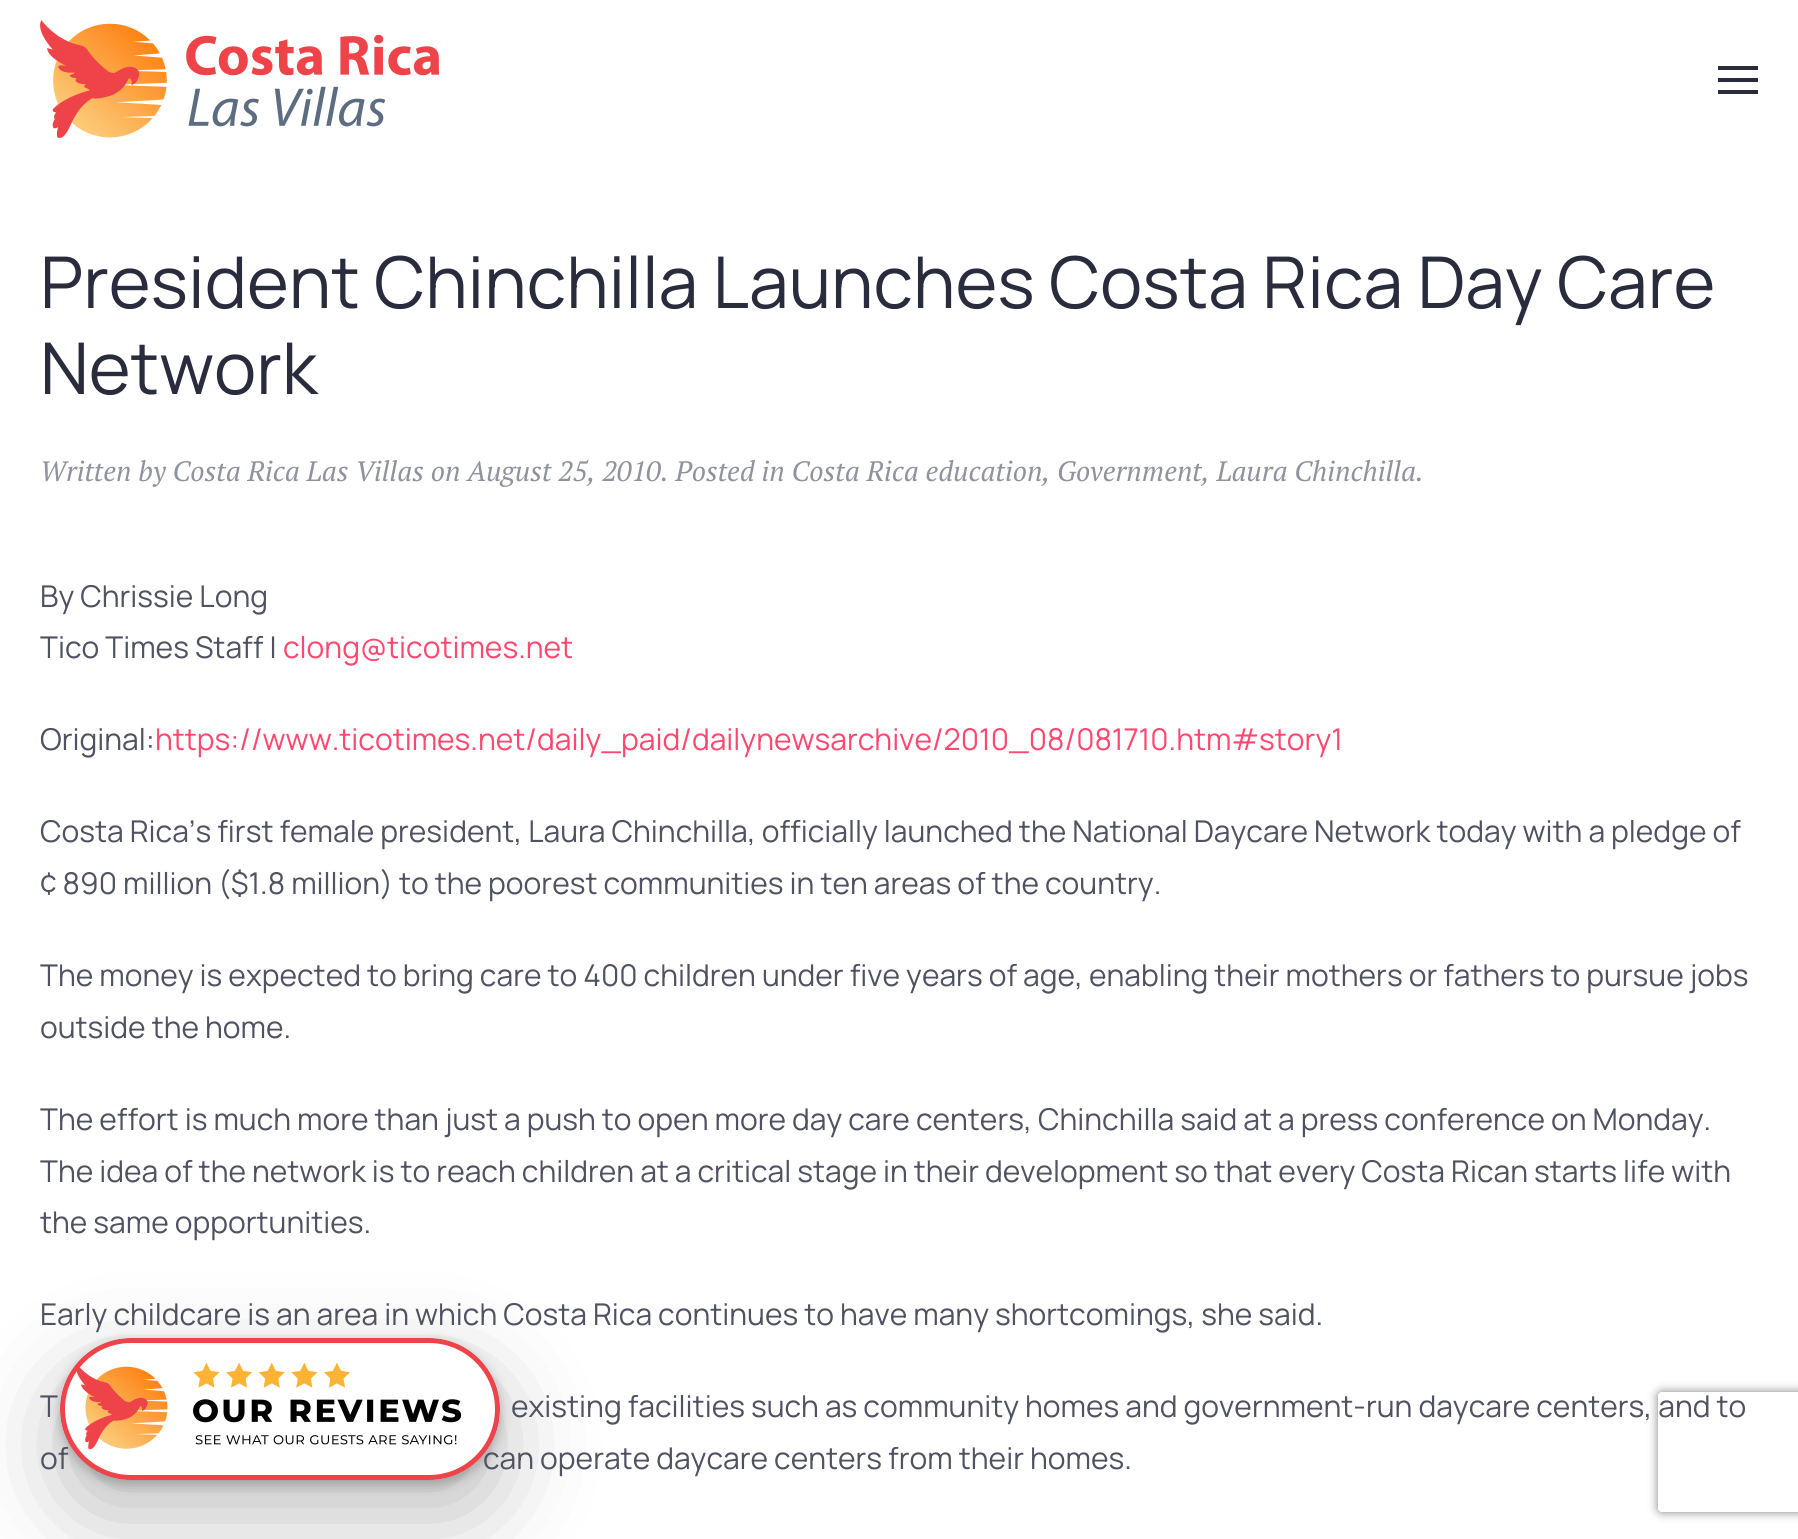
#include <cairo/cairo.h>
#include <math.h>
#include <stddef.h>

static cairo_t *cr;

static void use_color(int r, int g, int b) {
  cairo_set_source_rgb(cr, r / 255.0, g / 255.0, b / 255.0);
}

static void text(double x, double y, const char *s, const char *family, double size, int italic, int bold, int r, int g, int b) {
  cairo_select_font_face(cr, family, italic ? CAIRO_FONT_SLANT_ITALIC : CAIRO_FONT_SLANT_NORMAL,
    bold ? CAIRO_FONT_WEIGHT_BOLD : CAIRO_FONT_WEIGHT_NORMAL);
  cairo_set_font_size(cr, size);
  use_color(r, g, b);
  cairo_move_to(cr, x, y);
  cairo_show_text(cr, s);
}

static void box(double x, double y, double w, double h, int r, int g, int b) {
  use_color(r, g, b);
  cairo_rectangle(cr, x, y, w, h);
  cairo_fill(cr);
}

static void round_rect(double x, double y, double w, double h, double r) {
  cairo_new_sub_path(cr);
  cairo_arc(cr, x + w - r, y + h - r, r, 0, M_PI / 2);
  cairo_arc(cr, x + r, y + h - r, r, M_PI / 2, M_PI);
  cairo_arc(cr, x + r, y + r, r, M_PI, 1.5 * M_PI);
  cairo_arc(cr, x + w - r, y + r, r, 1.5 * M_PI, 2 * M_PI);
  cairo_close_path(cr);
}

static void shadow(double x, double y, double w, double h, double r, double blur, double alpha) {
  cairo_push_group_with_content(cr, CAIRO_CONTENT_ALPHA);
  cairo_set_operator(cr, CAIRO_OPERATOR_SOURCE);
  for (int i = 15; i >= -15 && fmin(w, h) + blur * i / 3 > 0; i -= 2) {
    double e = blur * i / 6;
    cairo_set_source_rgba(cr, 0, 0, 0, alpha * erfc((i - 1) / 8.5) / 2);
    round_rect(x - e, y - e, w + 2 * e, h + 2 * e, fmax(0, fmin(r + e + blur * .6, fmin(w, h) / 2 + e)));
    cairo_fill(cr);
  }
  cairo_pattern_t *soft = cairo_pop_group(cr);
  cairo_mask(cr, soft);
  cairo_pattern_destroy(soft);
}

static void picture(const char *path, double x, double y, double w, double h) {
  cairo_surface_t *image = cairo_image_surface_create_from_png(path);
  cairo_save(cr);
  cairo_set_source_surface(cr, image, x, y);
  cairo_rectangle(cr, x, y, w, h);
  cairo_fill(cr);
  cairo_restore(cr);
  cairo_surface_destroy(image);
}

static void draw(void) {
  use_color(255, 255, 255);
  cairo_paint(cr);
  picture("img_01.png", 40, 20, 399, 118);
  box(1718, 66, 40, 4, 41, 44, 61);
  box(1718, 78, 40, 4, 41, 44, 61);
  box(1718, 90, 40, 4, 41, 44, 61);
  use_color(0, 0, 0);
  shadow(60, 1374, 440, 142, 71, 47, 0.25);
  shadow(60, 1342, 440, 142, 71, 6, 0.26);
  cairo_save(cr);
  cairo_set_fill_rule(cr, CAIRO_FILL_RULE_EVEN_ODD);
  cairo_new_path(cr);
  cairo_move_to(cr, 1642, 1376);
  cairo_line_to(cr, 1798, 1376);
  cairo_line_to(cr, 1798, 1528);
  cairo_line_to(cr, 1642, 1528);
  cairo_close_path(cr);
  cairo_move_to(cr, 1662, 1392);
  cairo_line_to(cr, 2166, 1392);
  cairo_curve_to(cr, 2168, 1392, 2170, 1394, 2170, 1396);
  cairo_line_to(cr, 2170, 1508);
  cairo_curve_to(cr, 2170, 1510, 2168, 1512, 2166, 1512);
  cairo_line_to(cr, 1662, 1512);
  cairo_curve_to(cr, 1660, 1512, 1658, 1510, 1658, 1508);
  cairo_line_to(cr, 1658, 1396);
  cairo_curve_to(cr, 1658, 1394, 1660, 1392, 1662, 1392);
  cairo_close_path(cr);
  cairo_clip(cr);
  use_color(128, 128, 128);
  shadow(1658, 1392, 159, 120, 4, 5, 1);
  cairo_restore(cr);
  text(40, 308, "President Chinchilla Launches Costa Rica Day Care", "Manrope ExtraLight", 71.4, 0, 0, 41, 44, 61);
  text(40, 394, "Network", "Manrope ExtraLight", 71.4, 0, 0, 41, 44, 61);
  text(40, 481, "Written by Costa Rica Las Villas on August 25, 2010. Posted in Costa Rica education, Government, Laura Chinchilla.", "PT Serif", 28, 1, 0, 144, 146, 157);
  text(40, 607, "By Chrissie Long", "Manrope ExtraLight", 30, 0, 0, 79, 82, 96);
  text(40, 658, "Tico Times Staff |", "Manrope ExtraLight", 30, 0, 0, 79, 82, 96);
  text(283, 658, "clong@ticotimes.net", "Manrope ExtraLight", 30, 0, 0, 255, 72, 112);
  text(40, 750, "Original:", "Manrope ExtraLight", 30, 0, 0, 79, 82, 96);
  text(155, 750, "https://www.ticotimes.net/daily_paid/dailynewsarchive/2010_08/081710.htm#story1", "Manrope ExtraLight", 30, 0, 0, 255, 72, 112);
  text(40, 842, "Costa Rica’s first female president, Laura Chinchilla, officially launched the National Daycare Network today with a pledge of", "Manrope ExtraLight", 30, 0, 0, 79, 82, 96);
  text(40, 894, "¢ 890 million ($1.8 million) to the poorest communities in ten areas of the country.", "Manrope ExtraLight", 30, 0, 0, 79, 82, 96);
  text(40, 986, "The money is expected to bring care to 400 children under five years of age, enabling their mothers or fathers to pursue jobs", "Manrope ExtraLight", 30, 0, 0, 79, 82, 96);
  text(40, 1038, "outside the home.", "Manrope ExtraLight", 30, 0, 0, 79, 82, 96);
  text(40, 1130, "The effort is much more than just a push to open more day care centers, Chinchilla said at a press conference on Monday.", "Manrope ExtraLight", 30, 0, 0, 79, 82, 96);
  text(40, 1182, "The idea of the network is to reach children at a critical stage in their development so that every Costa Rican starts life with", "Manrope ExtraLight", 30, 0, 0, 79, 82, 96);
  text(40, 1233, "the same opportunities.", "Manrope ExtraLight", 30, 0, 0, 79, 82, 96);
  text(40, 1325, "Early childcare is an area in which Costa Rica continues to have many shortcomings, she said.", "Manrope ExtraLight", 30, 0, 0, 79, 82, 96);
  text(40, 1417, "T", "Manrope ExtraLight", 30, 0, 0, 79, 82, 96);
  text(511, 1417, "existing facilities such as community homes and government-run daycare centers, and to", "Manrope ExtraLight", 30, 0, 0, 79, 82, 96);
  text(40, 1469, "of", "Manrope ExtraLight", 30, 0, 0, 79, 82, 96);
  text(483, 1469, "can operate daycare centers from their homes.", "Manrope ExtraLight", 30, 0, 0, 79, 82, 96);
  picture("img_02.png", 60, 1338, 440, 142);
}

int main(void) {
  cairo_surface_t *surface = cairo_image_surface_create(CAIRO_FORMAT_RGB24, 1798, 1539);
  cr = cairo_create(surface);
  cairo_font_options_t *options = cairo_font_options_create();
  cairo_font_options_set_hint_metrics(options, CAIRO_HINT_METRICS_OFF);
  cairo_font_options_set_hint_style(options, CAIRO_HINT_STYLE_NONE);
  cairo_set_font_options(cr, options);
  cairo_set_miter_limit(cr, 4);
  draw();
  cairo_surface_write_to_png(surface, "out.png");
  cairo_font_options_destroy(options);
  cairo_destroy(cr);
  cairo_surface_destroy(surface);
  return 0;
}
